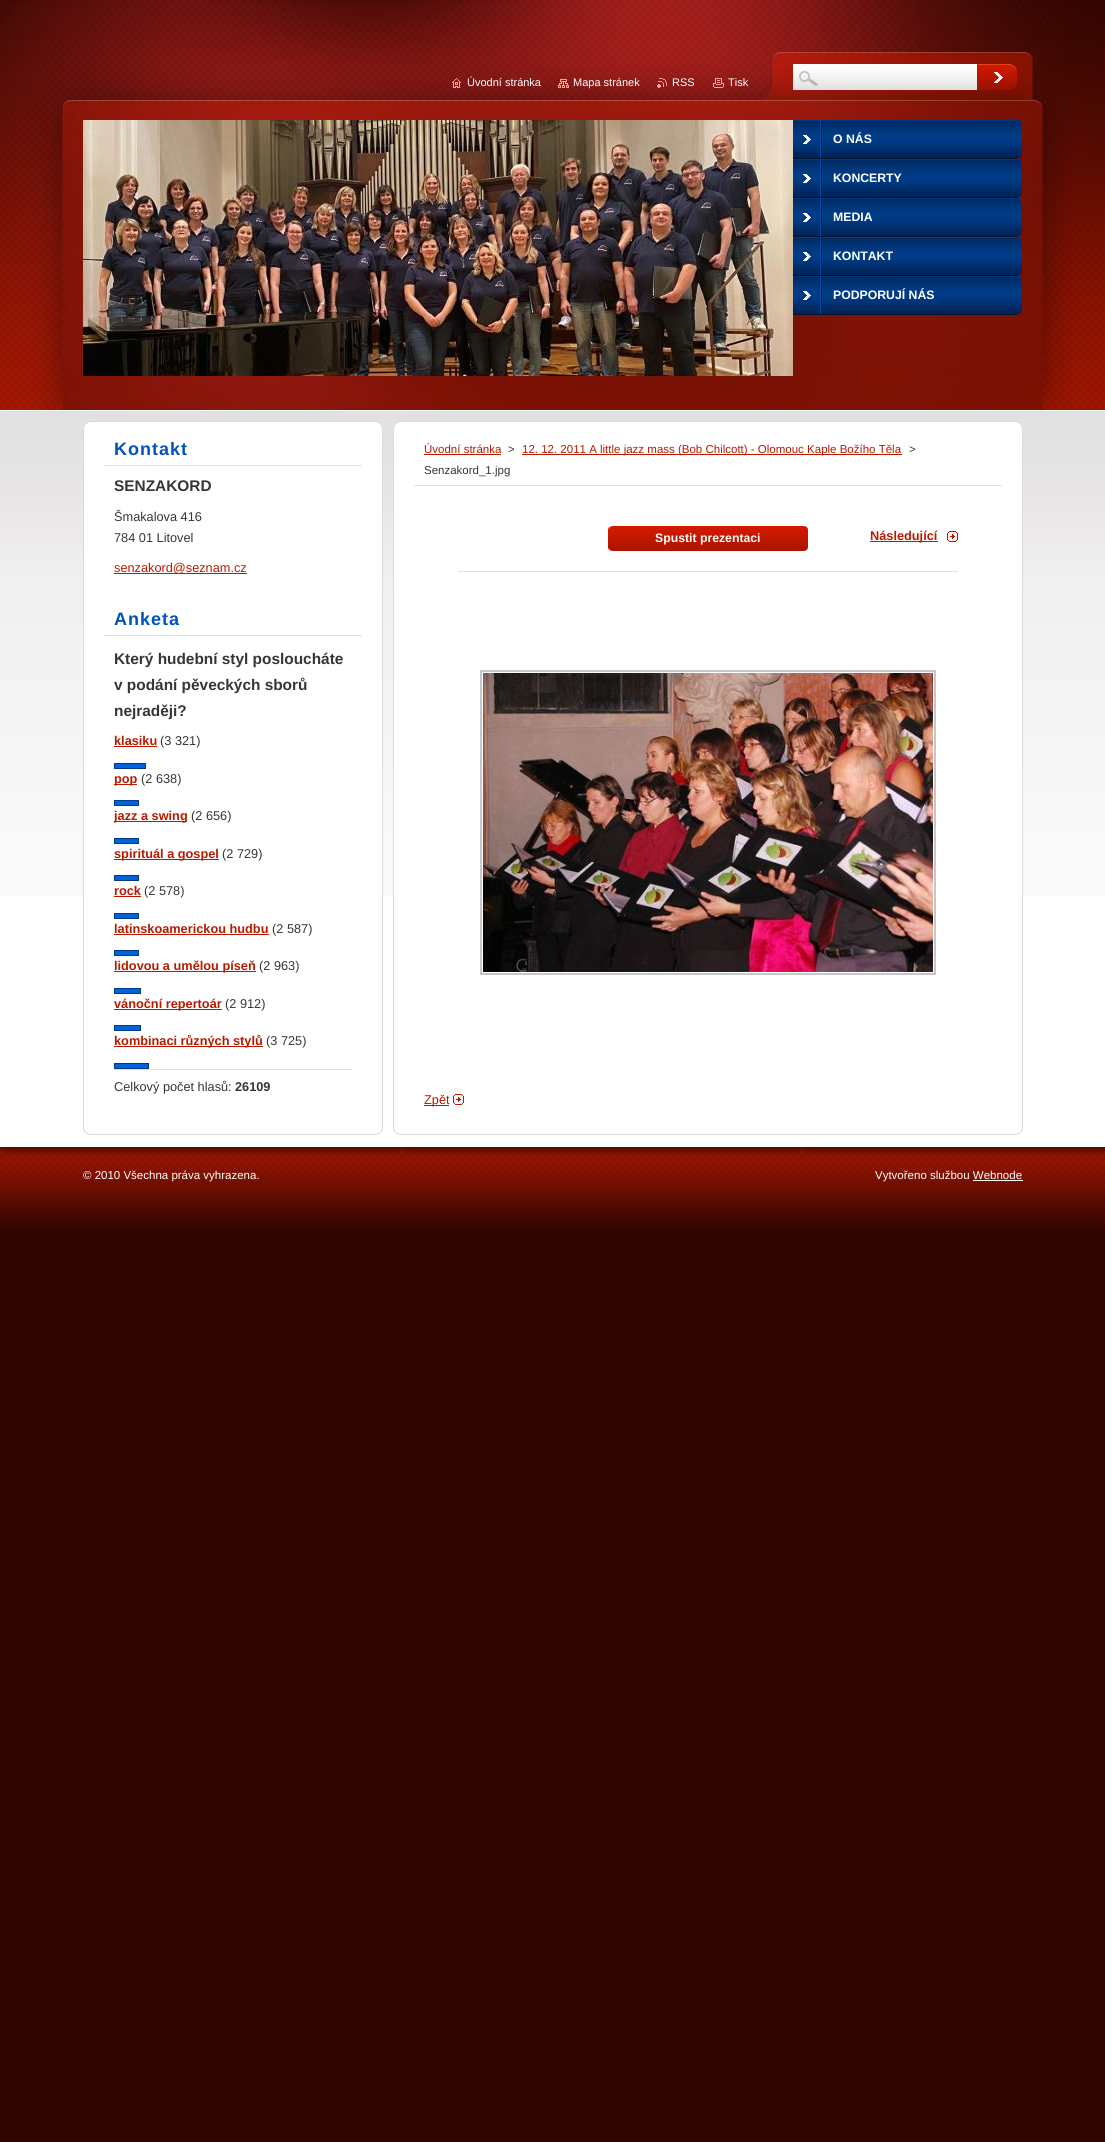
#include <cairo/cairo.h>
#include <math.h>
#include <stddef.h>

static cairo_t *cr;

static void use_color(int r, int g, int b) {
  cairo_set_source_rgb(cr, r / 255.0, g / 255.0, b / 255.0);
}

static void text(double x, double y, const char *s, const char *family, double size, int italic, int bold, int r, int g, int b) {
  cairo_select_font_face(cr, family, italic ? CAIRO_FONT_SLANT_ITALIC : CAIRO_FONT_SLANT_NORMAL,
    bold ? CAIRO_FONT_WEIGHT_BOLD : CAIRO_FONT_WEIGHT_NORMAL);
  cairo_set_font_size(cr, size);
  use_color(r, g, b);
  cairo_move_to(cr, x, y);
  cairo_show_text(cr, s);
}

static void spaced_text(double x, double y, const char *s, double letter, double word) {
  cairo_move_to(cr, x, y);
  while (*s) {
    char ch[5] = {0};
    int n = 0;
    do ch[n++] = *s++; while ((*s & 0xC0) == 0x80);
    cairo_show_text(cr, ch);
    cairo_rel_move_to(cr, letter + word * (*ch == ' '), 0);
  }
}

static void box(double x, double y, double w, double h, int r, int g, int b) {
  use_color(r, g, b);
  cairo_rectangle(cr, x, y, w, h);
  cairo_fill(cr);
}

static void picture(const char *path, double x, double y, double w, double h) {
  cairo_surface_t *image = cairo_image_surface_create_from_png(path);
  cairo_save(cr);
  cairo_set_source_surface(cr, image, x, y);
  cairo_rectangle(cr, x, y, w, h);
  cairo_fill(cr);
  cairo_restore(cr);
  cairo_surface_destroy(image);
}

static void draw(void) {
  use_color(50, 6, 0);
  cairo_paint(cr);
  box(0, 896, 1105, 251, 255, 255, 255);
  picture("img_01.png", 0, 411, 1105, 485);
  picture("img_02.png", 0, 0, 1105, 411);
  picture("img_03.png", 452, 78, 9, 10);
  picture("img_04.png", 558, 79, 11, 9);
  picture("img_05.png", 657, 78, 10, 10);
  picture("img_06.png", 713, 78, 11, 10);
  box(793, 64, 184, 1, 255, 255, 255);
  picture("img_07.png", 793, 65, 184, 25);
  picture("img_08.png", 977, 64, 40, 26);
  picture("img_09.png", 83, 120, 710, 256);
  picture("img_10.png", 793, 120, 230, 39);
  picture("img_10.png", 793, 159, 230, 39);
  picture("img_10.png", 793, 198, 230, 39);
  picture("img_10.png", 793, 237, 230, 39);
  picture("img_10.png", 793, 276, 230, 39);
  picture("img_11.png", 83, 421, 300, 8);
  box(84, 429, 298, 467, 255, 255, 255);
  box(382, 429, 1, 698, 218, 218, 218);
  box(83, 429, 1, 698, 218, 218, 218);
  box(104, 465, 258, 1, 225, 225, 225);
  box(114, 573, 133, 1, 184, 26, 0);
  box(104, 635, 258, 1, 225, 225, 225);
  box(114, 746, 43, 1, 184, 26, 0);
  cairo_rectangle(cr, 114.5, 763.5, 31, 5);
  use_color(0, 59, 133);
  cairo_set_line_width(cr, 1);
  cairo_stroke(cr);
  box(115, 764, 30, 4, 0, 99, 220);
  box(114, 784, 23, 1, 184, 26, 0);
  cairo_rectangle(cr, 114.5, 800.5, 24, 5);
  use_color(0, 59, 133);
  cairo_stroke(cr);
  box(115, 801, 23, 4, 0, 99, 220);
  box(114, 821, 73, 1, 184, 26, 0);
  cairo_rectangle(cr, 114.5, 838.5, 24, 5);
  use_color(0, 59, 133);
  cairo_stroke(cr);
  box(115, 839, 23, 4, 0, 99, 220);
  box(114, 859, 105, 1, 184, 26, 0);
  cairo_rectangle(cr, 114.5, 875.5, 24, 5);
  use_color(0, 59, 133);
  cairo_stroke(cr);
  box(115, 876, 23, 4, 0, 99, 220);
  box(114, 896, 27, 1, 184, 26, 0);
  cairo_rectangle(cr, 114.5, 913.5, 24, 5);
  use_color(0, 59, 133);
  cairo_stroke(cr);
  box(115, 914, 23, 4, 0, 99, 220);
  box(114, 934, 155, 1, 184, 26, 0);
  cairo_rectangle(cr, 114.5, 950.5, 24, 5);
  use_color(0, 59, 133);
  cairo_stroke(cr);
  box(115, 951, 23, 4, 0, 99, 220);
  box(114, 971, 142, 1, 184, 26, 0);
  cairo_rectangle(cr, 114.5, 988.5, 26, 5);
  use_color(0, 59, 133);
  cairo_stroke(cr);
  box(115, 989, 25, 4, 0, 99, 220);
  box(114, 1009, 108, 1, 184, 26, 0);
  cairo_rectangle(cr, 114.5, 1025.5, 26, 5);
  use_color(0, 59, 133);
  cairo_stroke(cr);
  box(115, 1026, 25, 4, 0, 99, 220);
  box(114, 1046, 149, 1, 184, 26, 0);
  cairo_rectangle(cr, 114.5, 1063.5, 34, 5);
  use_color(0, 59, 133);
  cairo_stroke(cr);
  box(115, 1064, 33, 4, 0, 99, 220);
  box(114, 1069, 238, 1, 225, 225, 225);
  picture("img_12.png", 83, 1127, 300, 8);
  picture("img_13.png", 393, 421, 630, 8);
  box(394, 429, 628, 467, 255, 255, 255);
  box(1022, 429, 1, 698, 218, 218, 218);
  box(393, 429, 1, 698, 218, 218, 218);
  box(414, 485, 588, 1, 225, 225, 225);
  box(424, 454, 77, 1, 184, 26, 0);
  box(522, 454, 380, 1, 184, 26, 0);
  box(458, 571, 500, 1, 225, 225, 225);
  picture("img_14.png", 608, 526, 4, 25);
  picture("img_15.png", 612, 526, 196, 25);
  picture("img_16.png", 947, 531, 11, 11);
  box(870, 541, 68, 1, 184, 26, 0);
  cairo_rectangle(cr, 481, 671, 454, 303);
  use_color(199, 199, 199);
  cairo_set_line_width(cr, 2);
  cairo_stroke(cr);
  picture("img_17.png", 483, 673, 450, 299);
  picture("img_16.png", 453, 1094, 11, 11);
  box(424, 1105, 25, 1, 184, 26, 0);
  picture("img_18.png", 393, 1127, 630, 8);
  picture("img_19.png", 0, 1147, 1105, 90);
  box(973, 1180, 50, 1, 255, 255, 255);
  text(467, 86, "Úvodní stránka", "Liberation Sans", 11, 0, 0, 255, 255, 255);
  text(573, 86, "Mapa stránek", "Liberation Sans", 11, 0, 0, 255, 255, 255);
  text(672, 86, "RSS", "Liberation Sans", 11, 0, 0, 255, 255, 255);
  text(728, 86, "Tisk", "Liberation Sans", 11, 0, 0, 255, 255, 255);
  text(833, 143, "O NÁS", "Liberation Sans", 12.25, 0, 1, 255, 255, 255);
  text(833, 182, "KONCERTY", "Liberation Sans", 12.25, 0, 1, 255, 255, 255);
  text(833, 221, "MEDIA", "Liberation Sans", 12.25, 0, 1, 255, 255, 255);
  text(833, 260, "KONTAKT", "Liberation Sans", 12.25, 0, 1, 255, 255, 255);
  text(833, 299, "PODPORUJÍ NÁS", "Liberation Sans", 12.25, 0, 1, 255, 255, 255);
  cairo_set_font_size(cr, 18);
  use_color(0, 83, 186);
  spaced_text(114, 455, "Kontakt", 1, 0);
  text(114, 491, "SENZAKORD", "Liberation Sans", 15.4, 0, 1, 54, 54, 54);
  text(114, 521, "Šmakalova 416", "Liberation Sans", 12.75, 0, 0, 54, 54, 54);
  text(114, 542, "784 01 Litovel", "Liberation Sans", 12.75, 0, 0, 54, 54, 54);
  text(114, 572, "senzakord@seznam.cz", "Liberation Sans", 12.75, 0, 0, 184, 26, 0);
  cairo_select_font_face(cr, "Liberation Sans", CAIRO_FONT_SLANT_NORMAL, CAIRO_FONT_WEIGHT_BOLD);
  cairo_set_font_size(cr, 18);
  use_color(0, 83, 186);
  spaced_text(114, 625, "Anketa", 1, 0);
  text(114, 664, "Který hudební styl posloucháte", "Liberation Sans", 15.4, 0, 1, 54, 54, 54);
  text(114, 690, "v podání pěveckých sborů", "Liberation Sans", 15.4, 0, 1, 54, 54, 54);
  text(114, 716, "nejraději?", "Liberation Sans", 15.4, 0, 1, 54, 54, 54);
  text(114, 745, "klasiku", "Liberation Sans", 12.75, 0, 1, 184, 26, 0);
  text(160, 745, "(3 321)", "Liberation Sans", 12.75, 0, 0, 54, 54, 54);
  text(114, 783, "pop", "Liberation Sans", 12.75, 0, 1, 184, 26, 0);
  text(141, 783, "(2 638)", "Liberation Sans", 12.75, 0, 0, 54, 54, 54);
  text(114, 820, "jazz a swing", "Liberation Sans", 12.75, 0, 1, 184, 26, 0);
  text(191, 820, "(2 656)", "Liberation Sans", 12.75, 0, 0, 54, 54, 54);
  text(114, 858, "spirituál a gospel", "Liberation Sans", 12.75, 0, 1, 184, 26, 0);
  text(222, 858, "(2 729)", "Liberation Sans", 12.75, 0, 0, 54, 54, 54);
  text(114, 895, "rock", "Liberation Sans", 12.75, 0, 1, 184, 26, 0);
  text(144, 895, "(2 578)", "Liberation Sans", 12.75, 0, 0, 54, 54, 54);
  text(114, 933, "latinskoamerickou hudbu", "Liberation Sans", 12.75, 0, 1, 184, 26, 0);
  text(272, 933, "(2 587)", "Liberation Sans", 12.75, 0, 0, 54, 54, 54);
  text(114, 970, "lidovou a umělou píseň", "Liberation Sans", 12.75, 0, 1, 184, 26, 0);
  text(259, 970, "(2 963)", "Liberation Sans", 12.75, 0, 0, 54, 54, 54);
  text(114, 1008, "vánoční repertoár", "Liberation Sans", 12.75, 0, 1, 184, 26, 0);
  text(225, 1008, "(2 912)", "Liberation Sans", 12.75, 0, 0, 54, 54, 54);
  text(114, 1045, "kombinaci různých stylů", "Liberation Sans", 12.75, 0, 1, 184, 26, 0);
  text(266, 1045, "(3 725)", "Liberation Sans", 12.75, 0, 0, 54, 54, 54);
  text(114, 1091, "Celkový počet hlasů:", "Liberation Sans", 12.75, 0, 0, 54, 54, 54);
  text(235, 1091, "26109", "Liberation Sans", 12.75, 0, 1, 54, 54, 54);
  text(424, 453, "Úvodní stránka", "Liberation Sans", 11.5, 0, 0, 184, 26, 0);
  text(508, 453, ">", "Liberation Sans", 11.5, 0, 0, 54, 54, 54);
  text(522, 453, "12. 12. 2011 A little jazz mass (Bob Chilcott) - Olomouc Kaple Božího Těla", "Liberation Sans", 11.5, 0, 0, 184, 26, 0);
  text(909, 453, ">", "Liberation Sans", 11.5, 0, 0, 54, 54, 54);
  text(424, 474, "Senzakord_1.jpg", "Liberation Sans", 11.5, 0, 0, 54, 54, 54);
  text(655, 542, "Spustit prezentaci", "Liberation Sans", 12.25, 0, 1, 255, 255, 255);
  text(870, 540, "Následující", "Liberation Sans", 12.75, 0, 1, 184, 26, 0);
  text(424, 1104, "Zpět", "Liberation Sans", 12.75, 0, 0, 184, 26, 0);
  text(83, 1179, "© 2010 Všechna práva vyhrazena.", "Liberation Sans", 11.5, 0, 0, 255, 255, 255);
  text(875, 1179, "Vytvořeno službou Webnode", "Liberation Sans", 11.5, 0, 0, 255, 255, 255);
}

int main(void) {
  cairo_surface_t *surface = cairo_image_surface_create(CAIRO_FORMAT_RGB24, 1105, 2142);
  cr = cairo_create(surface);
  cairo_font_options_t *options = cairo_font_options_create();
  cairo_font_options_set_hint_metrics(options, CAIRO_HINT_METRICS_OFF);
  cairo_font_options_set_hint_style(options, CAIRO_HINT_STYLE_NONE);
  cairo_set_font_options(cr, options);
  cairo_set_miter_limit(cr, 4);
  draw();
  cairo_surface_write_to_png(surface, "out.png");
  cairo_font_options_destroy(options);
  cairo_destroy(cr);
  cairo_surface_destroy(surface);
  return 0;
}
